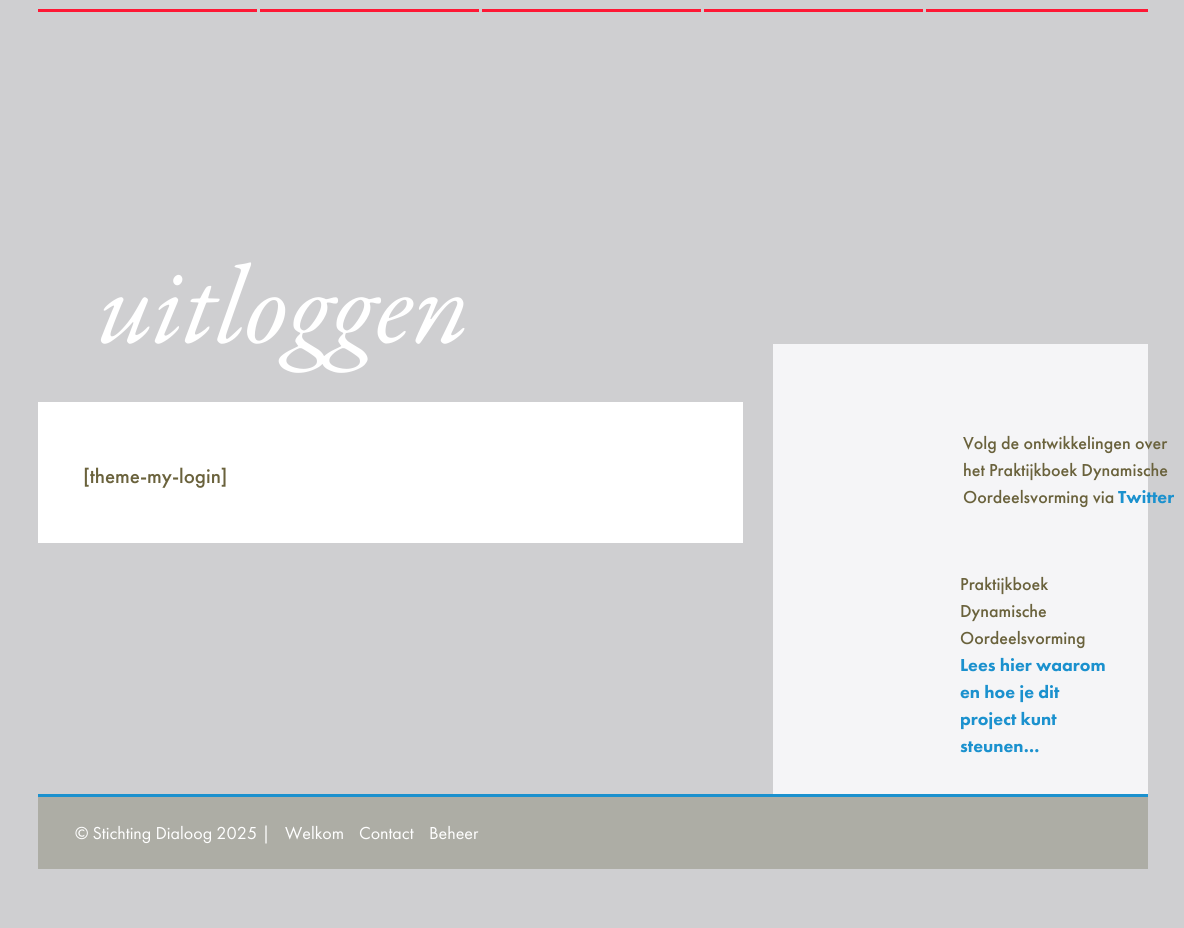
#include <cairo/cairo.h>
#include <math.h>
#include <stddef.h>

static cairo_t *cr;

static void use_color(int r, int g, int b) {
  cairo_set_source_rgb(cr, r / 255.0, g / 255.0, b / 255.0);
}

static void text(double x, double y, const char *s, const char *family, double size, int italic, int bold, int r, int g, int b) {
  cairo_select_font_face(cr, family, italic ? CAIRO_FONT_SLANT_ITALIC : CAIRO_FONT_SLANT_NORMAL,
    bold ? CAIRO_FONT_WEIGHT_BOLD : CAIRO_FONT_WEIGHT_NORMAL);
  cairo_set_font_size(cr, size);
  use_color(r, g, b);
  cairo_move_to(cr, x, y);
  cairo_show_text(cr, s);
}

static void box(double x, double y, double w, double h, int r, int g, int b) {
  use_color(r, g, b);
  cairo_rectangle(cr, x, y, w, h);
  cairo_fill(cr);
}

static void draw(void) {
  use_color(207, 207, 209);
  cairo_paint(cr);
  box(38, 9, 219, 3, 254, 24, 53);
  box(260, 9, 219, 3, 254, 24, 53);
  box(482, 9, 219, 3, 254, 24, 53);
  box(704, 9, 219, 3, 254, 24, 53);
  box(926, 9, 222, 3, 254, 24, 53);
  box(38, 402, 705, 141, 255, 255, 255);
  box(773, 344, 375, 450, 245, 245, 247);
  box(38, 797, 1110, 72, 173, 173, 165);
  box(38, 794, 1110, 3, 27, 145, 206);
  text(98, 342, "uitloggen", "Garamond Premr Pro", 111, 1, 0, 255, 255, 255);
  text(83, 483, "[theme-my-login]", "Futura PT Medium", 21, 0, 0, 106, 98, 60);
  text(963, 449, "Volg de ontwikkelingen over", "Futura PT Medium", 18, 0, 0, 106, 98, 60);
  text(963, 476, "het Praktijkboek Dynamische", "Futura PT Medium", 18, 0, 0, 106, 98, 60);
  text(963, 503, "Oordeelsvorming via", "Futura PT Medium", 18, 0, 0, 106, 98, 60);
  text(1118, 503, "Twitter", "Futura PT Black", 18, 0, 0, 27, 145, 206);
  text(960, 590, "Praktijkboek", "Futura PT Medium", 18, 0, 0, 106, 98, 60);
  text(960, 617, "Dynamische", "Futura PT Medium", 18, 0, 0, 106, 98, 60);
  text(960, 644, "Oordeelsvorming", "Futura PT Medium", 18, 0, 0, 106, 98, 60);
  text(960, 671, "Lees hier waarom", "Futura PT Black", 18, 0, 0, 27, 145, 206);
  text(960, 698, "en hoe je dit", "Futura PT Black", 18, 0, 0, 27, 145, 206);
  text(960, 725, "project kunt", "Futura PT Black", 18, 0, 0, 27, 145, 206);
  text(960, 752, "steunen…", "Futura PT Black", 18, 0, 0, 27, 145, 206);
  text(75, 839, "© Stichting Dialoog 2025 |", "Futura PT", 18, 0, 0, 255, 255, 255);
  text(285, 839, "Welkom", "Futura PT", 18, 0, 0, 255, 255, 255);
  text(359, 839, "Contact", "Futura PT", 18, 0, 0, 255, 255, 255);
  text(429, 839, "Beheer", "Futura PT", 18, 0, 0, 255, 255, 255);
}

int main(void) {
  cairo_surface_t *surface = cairo_image_surface_create(CAIRO_FORMAT_RGB24, 1184, 928);
  cr = cairo_create(surface);
  cairo_font_options_t *options = cairo_font_options_create();
  cairo_font_options_set_hint_metrics(options, CAIRO_HINT_METRICS_OFF);
  cairo_font_options_set_hint_style(options, CAIRO_HINT_STYLE_NONE);
  cairo_set_font_options(cr, options);
  cairo_set_miter_limit(cr, 4);
  draw();
  cairo_surface_write_to_png(surface, "out.png");
  cairo_font_options_destroy(options);
  cairo_destroy(cr);
  cairo_surface_destroy(surface);
  return 0;
}
